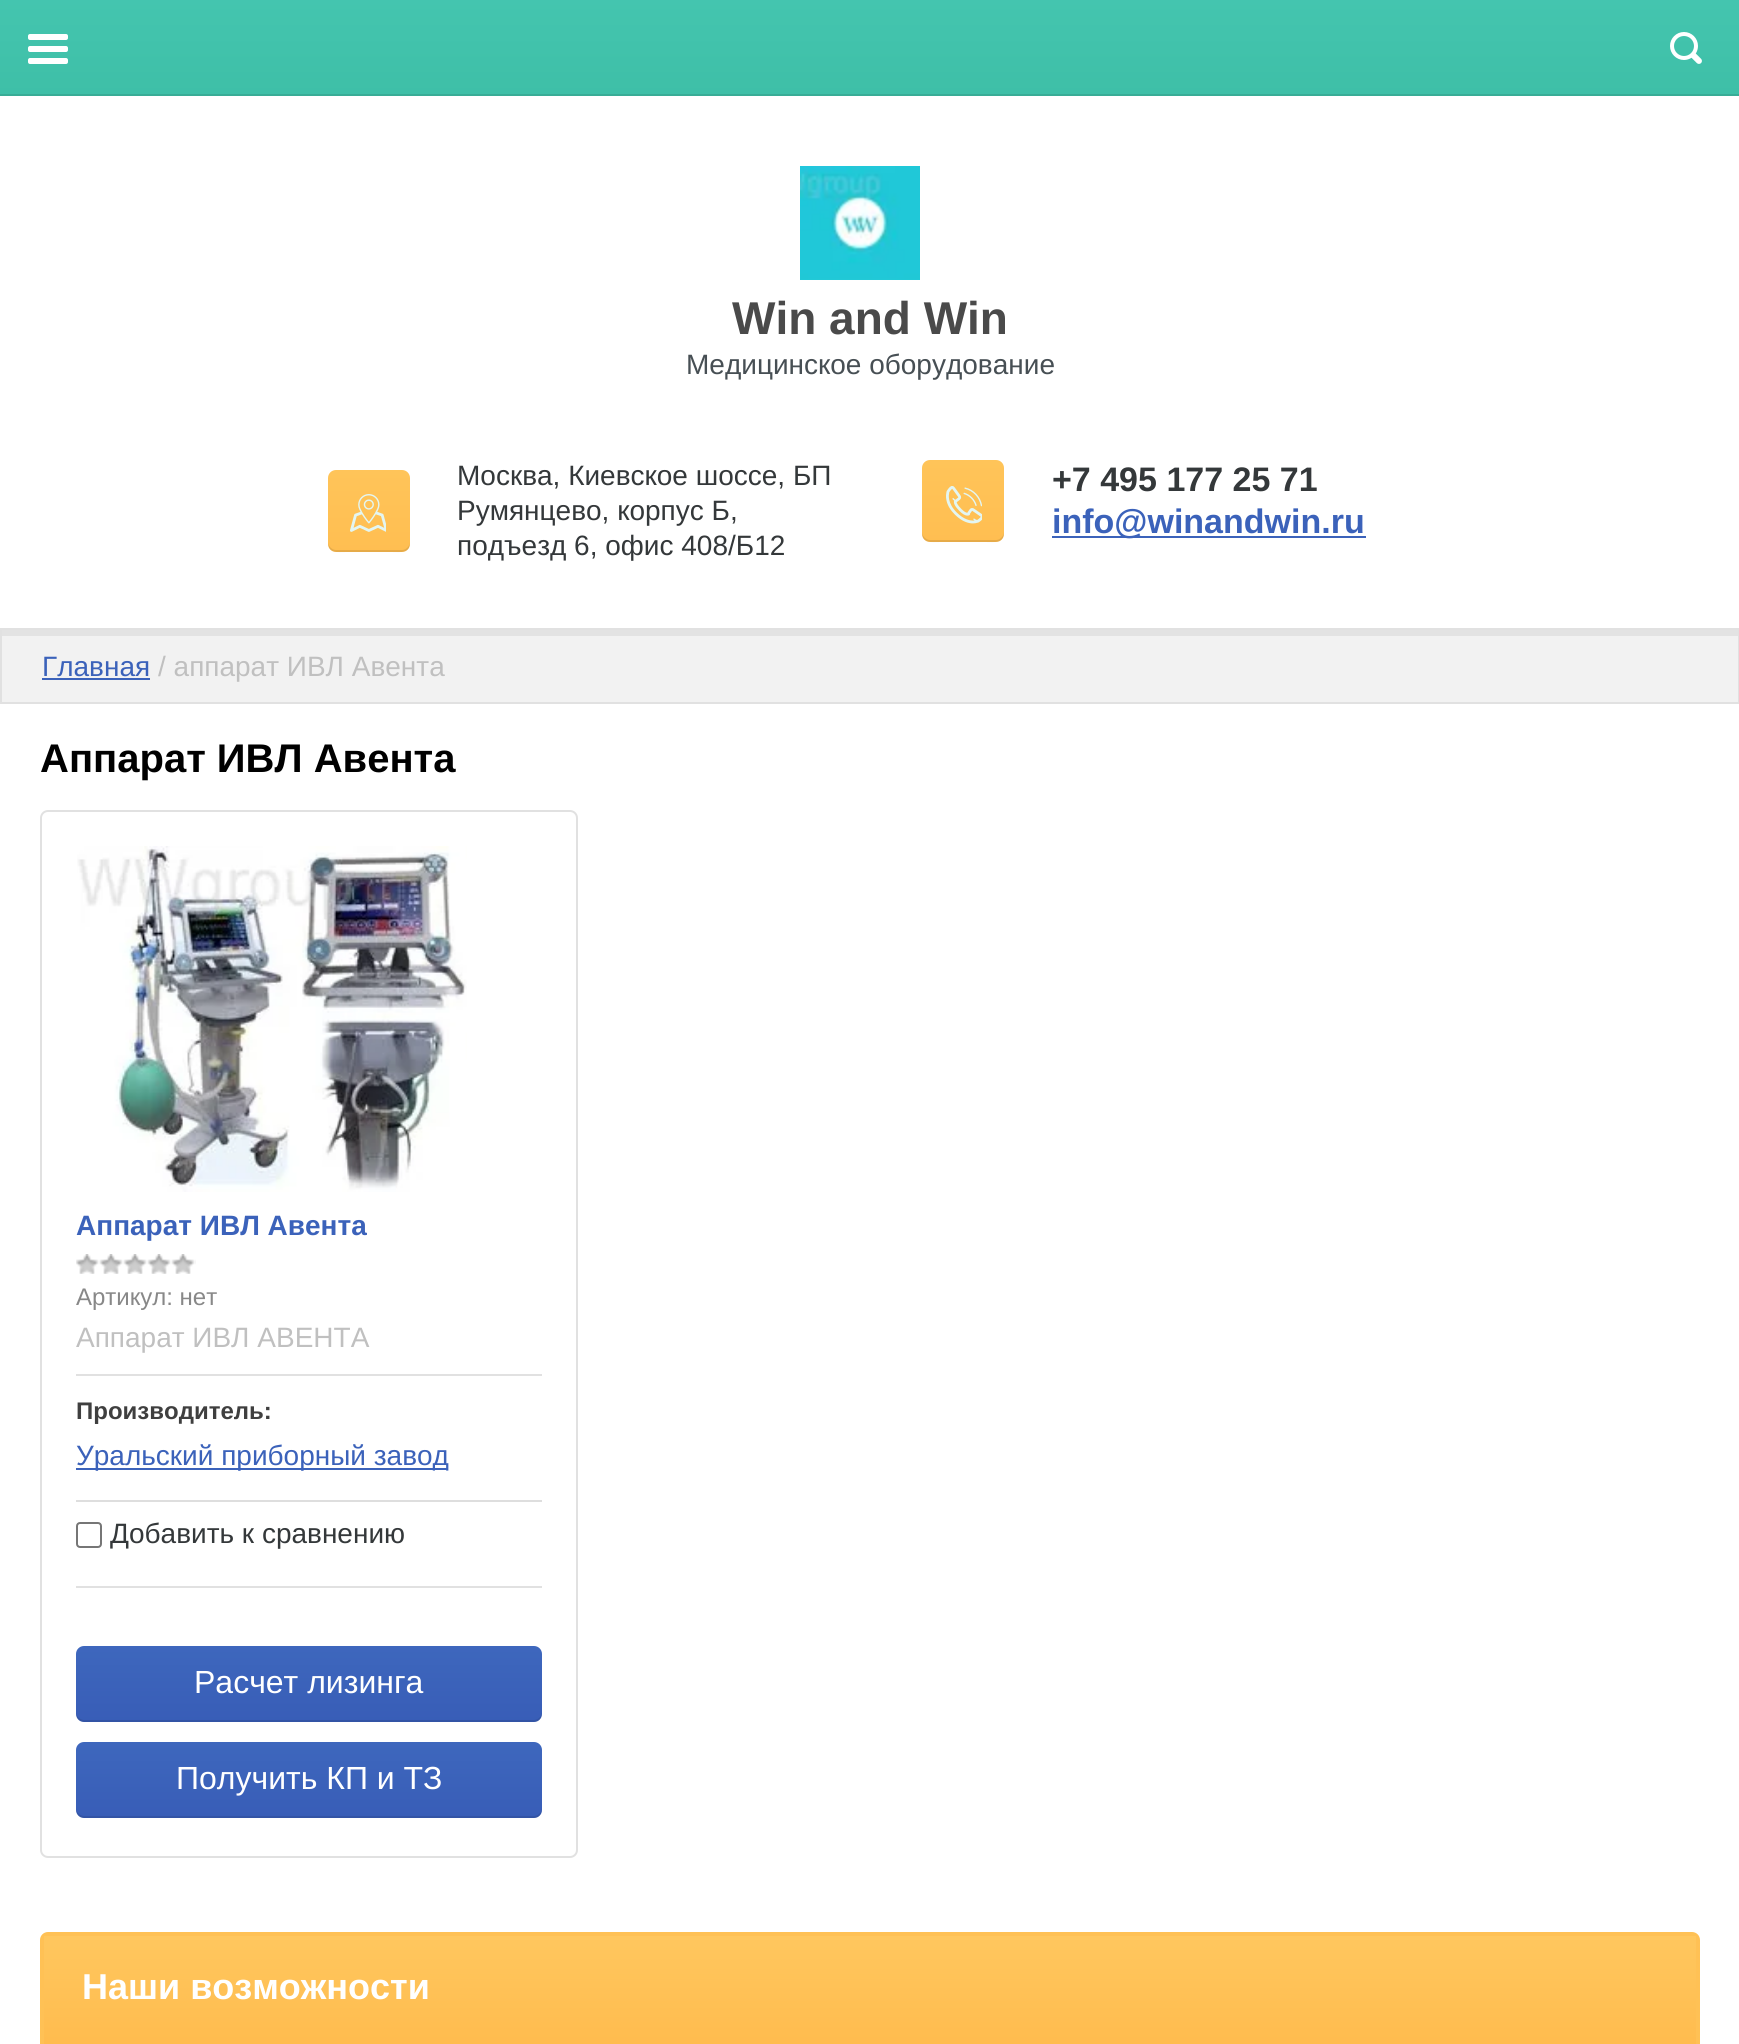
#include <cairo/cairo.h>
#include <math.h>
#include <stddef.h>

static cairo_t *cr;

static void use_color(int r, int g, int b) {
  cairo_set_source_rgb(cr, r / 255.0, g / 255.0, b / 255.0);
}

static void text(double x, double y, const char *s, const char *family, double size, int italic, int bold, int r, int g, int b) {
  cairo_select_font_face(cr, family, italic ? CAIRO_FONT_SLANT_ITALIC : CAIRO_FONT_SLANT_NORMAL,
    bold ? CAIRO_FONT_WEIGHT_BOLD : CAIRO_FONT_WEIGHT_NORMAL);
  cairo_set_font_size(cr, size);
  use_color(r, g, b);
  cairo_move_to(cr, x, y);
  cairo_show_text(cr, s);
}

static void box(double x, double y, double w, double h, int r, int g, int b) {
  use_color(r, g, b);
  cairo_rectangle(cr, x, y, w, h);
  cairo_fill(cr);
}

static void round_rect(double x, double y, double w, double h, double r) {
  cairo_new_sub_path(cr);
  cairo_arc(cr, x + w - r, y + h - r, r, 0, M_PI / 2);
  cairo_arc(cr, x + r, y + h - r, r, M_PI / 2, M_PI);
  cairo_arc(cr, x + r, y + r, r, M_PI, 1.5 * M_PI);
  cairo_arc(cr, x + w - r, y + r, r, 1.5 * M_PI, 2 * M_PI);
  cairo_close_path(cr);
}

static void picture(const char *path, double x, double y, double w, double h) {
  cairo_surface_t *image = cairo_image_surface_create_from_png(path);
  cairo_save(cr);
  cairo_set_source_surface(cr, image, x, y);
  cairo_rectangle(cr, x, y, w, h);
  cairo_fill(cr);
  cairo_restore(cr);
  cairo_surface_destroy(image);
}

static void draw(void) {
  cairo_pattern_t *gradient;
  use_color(255, 255, 255);
  cairo_paint(cr);
  gradient = cairo_pattern_create_linear(870, 96, 870, 0);
  cairo_pattern_add_color_stop_rgba(gradient, 0, 0.243, 0.749, 0.655, 1);
  cairo_pattern_add_color_stop_rgba(gradient, 1, 0.267, 0.773, 0.686, 1);
  cairo_set_source(cr, gradient);
  cairo_pattern_destroy(gradient);
  cairo_rectangle(cr, 0, 0, 1739, 94);
  cairo_fill(cr);
  box(0, 94, 1739, 2, 56, 172, 150);
  picture("img_01.png", 1670, 32, 32, 32);
  picture("img_02.png", 28, 34, 40, 30);
  picture("img_03.png", 800, 166, 120, 114);
  gradient = cairo_pattern_create_linear(369, 552, 369, 470);
  cairo_pattern_add_color_stop_rgba(gradient, 0, 1, 0.745, 0.318, 1);
  cairo_pattern_add_color_stop_rgba(gradient, 1, 1, 0.769, 0.349, 1);
  cairo_set_source(cr, gradient);
  cairo_pattern_destroy(gradient);
  round_rect(328, 470, 82, 82, 8);
  cairo_fill(cr);
  cairo_set_source_rgba(cr, 0, 0, 0, 0.1);
  cairo_new_path(cr);
  cairo_move_to(cr, 328, 542);
  cairo_curve_to(cr, 328, 554, 337, 552, 347, 552);
  cairo_line_to(cr, 391, 552);
  cairo_curve_to(cr, 401, 552, 410, 554, 410, 542);
  cairo_curve_to(cr, 410, 546, 406, 550, 402, 550);
  cairo_line_to(cr, 336, 550);
  cairo_curve_to(cr, 332, 550, 328, 546, 328, 542);
  cairo_close_path(cr);
  cairo_fill(cr);
  picture("img_04.png", 350, 494, 36, 38);
  gradient = cairo_pattern_create_linear(963, 542, 963, 460);
  cairo_pattern_add_color_stop_rgba(gradient, 0, 1, 0.745, 0.318, 1);
  cairo_pattern_add_color_stop_rgba(gradient, 1, 1, 0.769, 0.349, 1);
  cairo_set_source(cr, gradient);
  cairo_pattern_destroy(gradient);
  round_rect(922, 460, 82, 82, 8);
  cairo_fill(cr);
  cairo_set_source_rgba(cr, 0, 0, 0, 0.1);
  cairo_new_path(cr);
  cairo_move_to(cr, 922, 532);
  cairo_curve_to(cr, 922, 544, 931, 542, 941, 542);
  cairo_line_to(cr, 985, 542);
  cairo_curve_to(cr, 995, 542, 1004, 544, 1004, 532);
  cairo_curve_to(cr, 1004, 536, 1000, 540, 996, 540);
  cairo_line_to(cr, 930, 540);
  cairo_curve_to(cr, 926, 540, 922, 536, 922, 532);
  cairo_close_path(cr);
  cairo_fill(cr);
  picture("img_05.png", 946, 486, 36, 38);
  box(1052, 536, 314, 2, 59, 98, 186);
  box(2, 636, 1736, 66, 242, 242, 242);
  box(2, 630, 1736, 6, 227, 227, 227);
  cairo_rectangle(cr, 1, 629, 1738, 74);
  use_color(225, 225, 225);
  cairo_stroke(cr);
  box(42, 678, 108, 2, 59, 98, 186);
  round_rect(41, 811, 536, 1046, 7);
  use_color(225, 225, 225);
  cairo_stroke(cr);
  picture("img_06.png", 77, 846, 390, 346);
  picture("img_07.png", 76, 1254, 120, 20);
  box(76, 1374, 466, 2, 225, 225, 225);
  box(76, 1468, 372, 2, 59, 98, 186);
  box(76, 1500, 466, 2, 222, 222, 222);
  round_rect(77, 1523, 24, 24, 3);
  use_color(118, 118, 118);
  cairo_stroke(cr);
  box(76, 1586, 466, 2, 225, 225, 225);
  gradient = cairo_pattern_create_linear(309, 1722, 309, 1646);
  cairo_pattern_add_color_stop_rgba(gradient, 0, 0.22, 0.365, 0.718, 1);
  cairo_pattern_add_color_stop_rgba(gradient, 1, 0.243, 0.404, 0.741, 1);
  cairo_set_source(cr, gradient);
  cairo_pattern_destroy(gradient);
  round_rect(76, 1646, 466, 76, 8);
  cairo_fill(cr);
  cairo_set_source_rgba(cr, 0, 0, 0, 0.1);
  cairo_new_path(cr);
  cairo_move_to(cr, 76, 1712);
  cairo_curve_to(cr, 76, 1717, 78, 1722, 84, 1722);
  cairo_line_to(cr, 534, 1722);
  cairo_curve_to(cr, 540, 1722, 542, 1717, 542, 1712);
  cairo_curve_to(cr, 542, 1716, 538, 1720, 534, 1720);
  cairo_line_to(cr, 84, 1720);
  cairo_curve_to(cr, 80, 1720, 76, 1716, 76, 1712);
  cairo_close_path(cr);
  cairo_fill(cr);
  gradient = cairo_pattern_create_linear(309, 1818, 309, 1742);
  cairo_pattern_add_color_stop_rgba(gradient, 0, 0.22, 0.365, 0.718, 1);
  cairo_pattern_add_color_stop_rgba(gradient, 1, 0.243, 0.404, 0.741, 1);
  cairo_set_source(cr, gradient);
  cairo_pattern_destroy(gradient);
  round_rect(76, 1742, 466, 76, 8);
  cairo_fill(cr);
  cairo_set_source_rgba(cr, 0, 0, 0, 0.1);
  cairo_new_path(cr);
  cairo_move_to(cr, 76, 1808);
  cairo_curve_to(cr, 76, 1813, 78, 1818, 84, 1818);
  cairo_line_to(cr, 534, 1818);
  cairo_curve_to(cr, 540, 1818, 542, 1813, 542, 1808);
  cairo_curve_to(cr, 542, 1812, 538, 1816, 534, 1816);
  cairo_line_to(cr, 84, 1816);
  cairo_curve_to(cr, 80, 1816, 76, 1812, 76, 1808);
  cairo_close_path(cr);
  cairo_fill(cr);
  round_rect(42, 1934, 1656, 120, 6);
  use_color(255, 193, 85);
  cairo_set_line_width(cr, 4);
  cairo_stroke(cr);
  gradient = cairo_pattern_create_linear(870, 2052, 870, 1936);
  cairo_pattern_add_color_stop_rgba(gradient, 0, 1, 0.733, 0.302, 1);
  cairo_pattern_add_color_stop_rgba(gradient, 1, 1, 0.78, 0.369, 1);
  cairo_set_source(cr, gradient);
  cairo_pattern_destroy(gradient);
  cairo_rectangle(cr, 44, 1936, 1652, 108);
  cairo_fill(cr);
  text(732, 334, "Win and Win", "Liberation Sans", 46, 0, 1, 74, 74, 74);
  text(686, 374, "Медицинское оборудование", "Liberation Sans", 28, 0, 0, 71, 79, 84);
  text(457, 485, "Москва, Киевское шоссе, БП", "Liberation Sans", 28, 0, 0, 52, 56, 58);
  text(457, 520, "Румянцево, корпус Б,", "Liberation Sans", 28, 0, 0, 52, 56, 58);
  text(457, 555, "подъезд 6, офис 408/Б12", "Liberation Sans", 28, 0, 0, 52, 56, 58);
  text(1052, 491, "+7 495 177 25 71", "Liberation Sans", 34, 0, 1, 52, 56, 58);
  text(1052, 533, "info@winandwin.ru", "Liberation Sans", 34, 0, 1, 59, 98, 186);
  text(42, 676, "Главная", "Liberation Sans", 28, 0, 0, 59, 98, 186);
  text(158, 676, "/ аппарат ИВЛ Авента", "Liberation Sans", 28, 0, 0, 192, 192, 192);
  text(40, 772, "Аппарат ИВЛ Авента", "Liberation Sans", 40, 0, 1, 0, 0, 0);
  text(76, 1235, "Аппарат ИВЛ Авента", "Liberation Sans", 28, 0, 1, 59, 98, 186);
  text(76, 1305, "Артикул: нет", "Liberation Sans", 24, 0, 0, 136, 136, 136);
  text(76, 1347, "Аппарат ИВЛ АВЕНТА", "Liberation Sans", 28, 0, 0, 192, 192, 192);
  text(76, 1419, "Производитель:", "Liberation Sans", 24, 0, 1, 63, 63, 63);
  text(76, 1465, "Уральский приборный завод", "Liberation Sans", 28, 0, 0, 59, 98, 186);
  text(110, 1543, "Добавить к сравнению", "Liberation Sans", 28, 0, 0, 52, 56, 58);
  text(194, 1693, "Расчет лизинга", "Liberation Sans", 32, 0, 0, 255, 255, 255);
  text(176, 1789, "Получить КП и ТЗ", "Liberation Sans", 32, 0, 0, 255, 255, 255);
  text(82, 1999, "Наши возможности", "Liberation Sans", 36, 0, 1, 255, 255, 255);
}

int main(void) {
  cairo_surface_t *surface = cairo_image_surface_create(CAIRO_FORMAT_RGB24, 1739, 2044);
  cr = cairo_create(surface);
  cairo_font_options_t *options = cairo_font_options_create();
  cairo_font_options_set_hint_metrics(options, CAIRO_HINT_METRICS_OFF);
  cairo_font_options_set_hint_style(options, CAIRO_HINT_STYLE_NONE);
  cairo_set_font_options(cr, options);
  cairo_set_miter_limit(cr, 4);
  draw();
  cairo_surface_write_to_png(surface, "out.png");
  cairo_font_options_destroy(options);
  cairo_destroy(cr);
  cairo_surface_destroy(surface);
  return 0;
}
